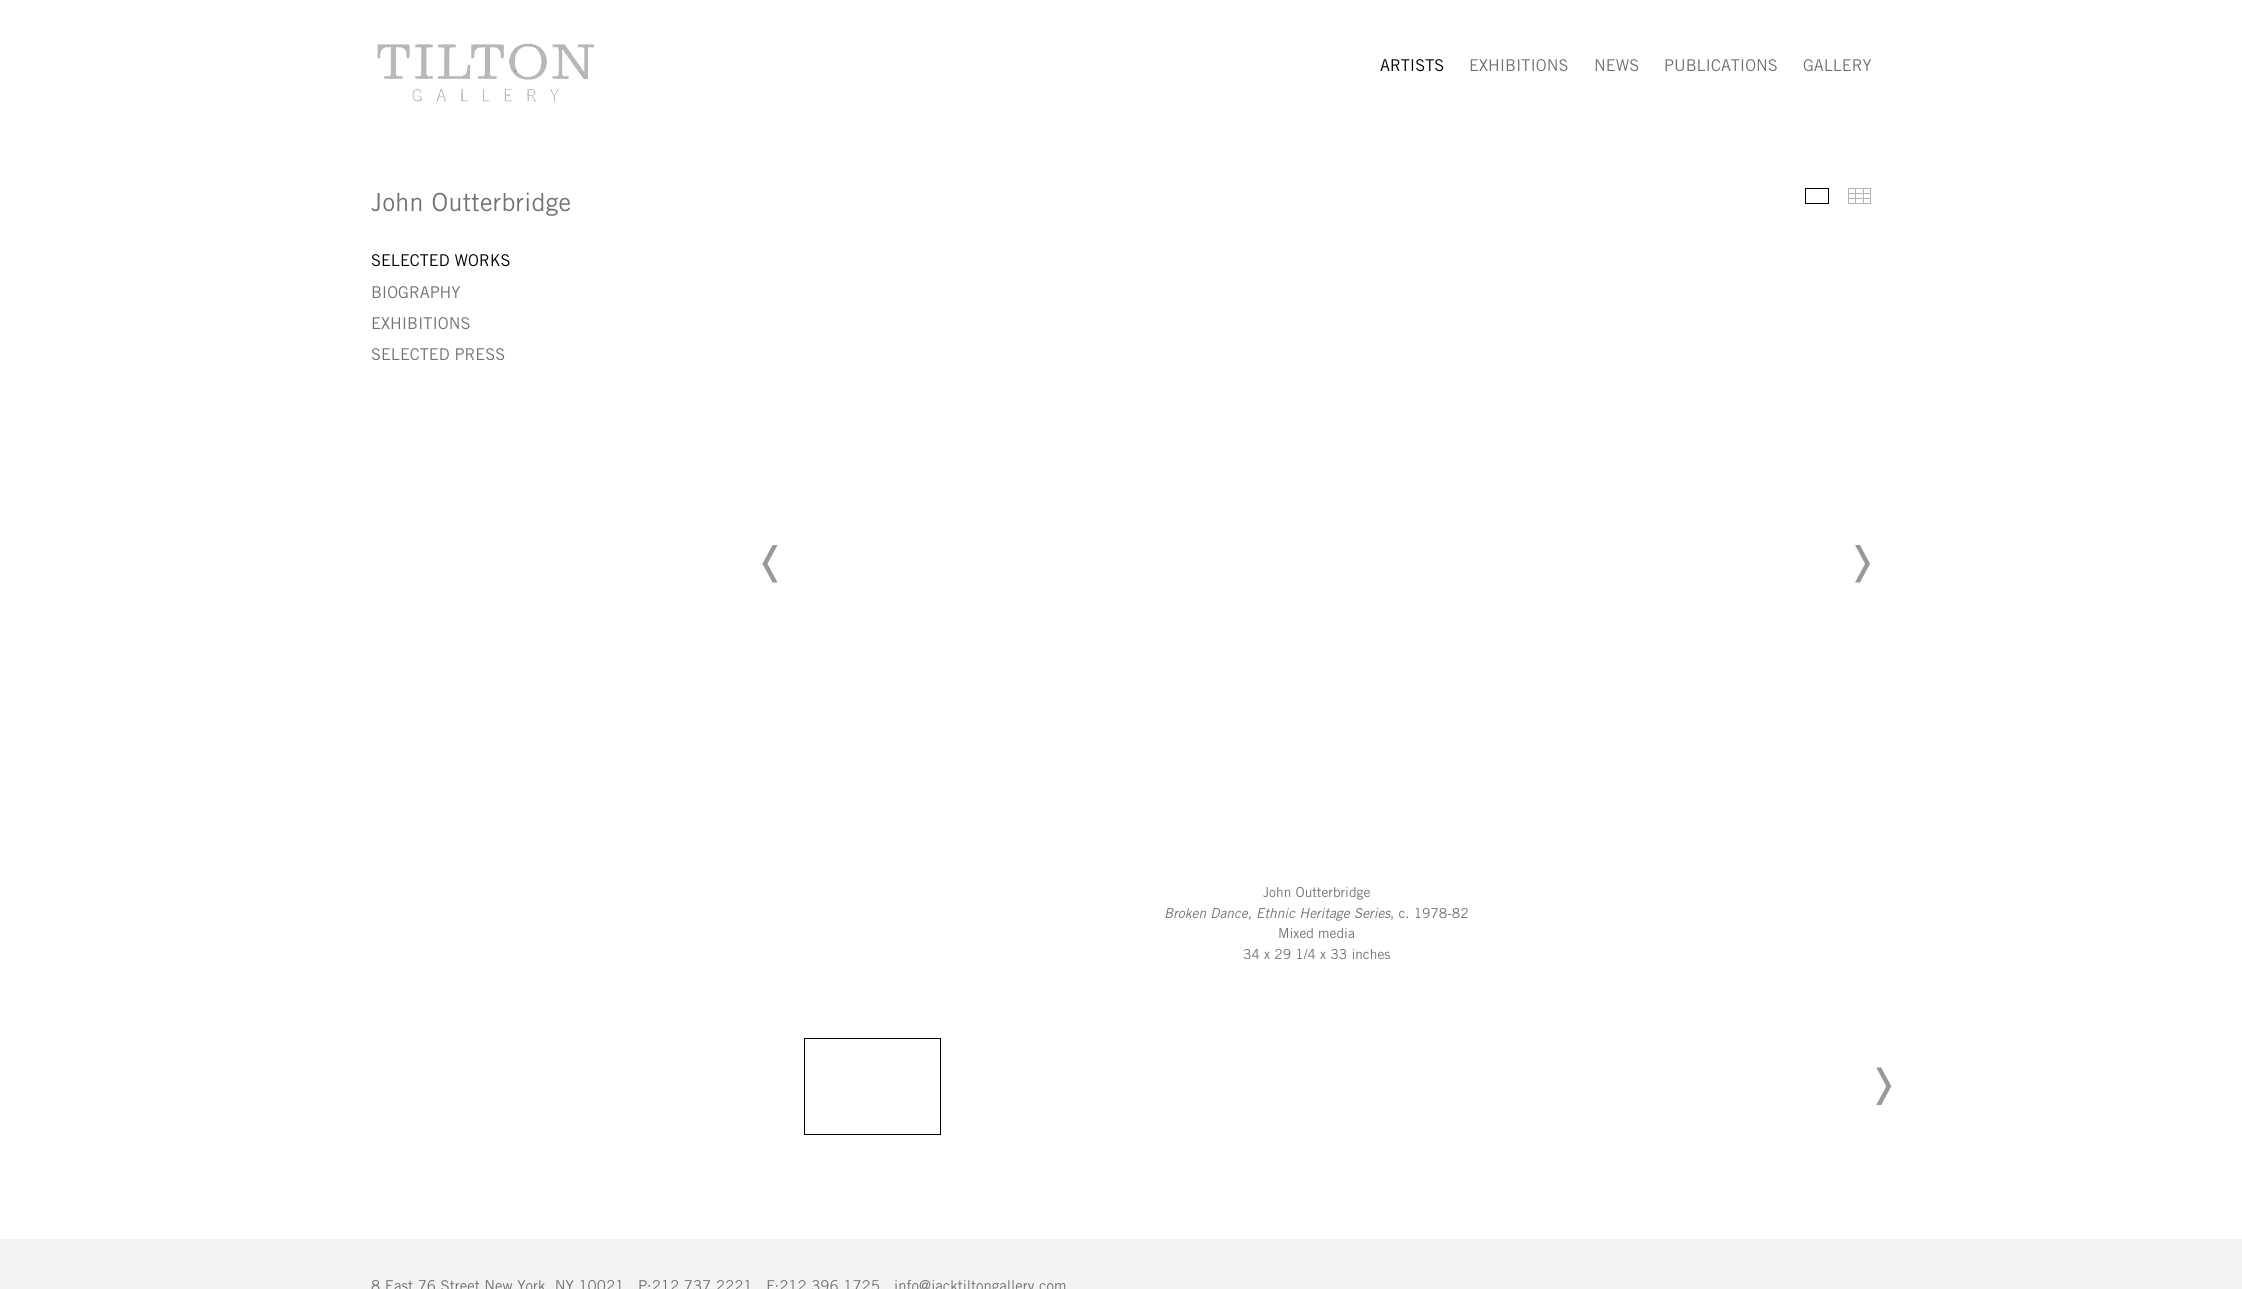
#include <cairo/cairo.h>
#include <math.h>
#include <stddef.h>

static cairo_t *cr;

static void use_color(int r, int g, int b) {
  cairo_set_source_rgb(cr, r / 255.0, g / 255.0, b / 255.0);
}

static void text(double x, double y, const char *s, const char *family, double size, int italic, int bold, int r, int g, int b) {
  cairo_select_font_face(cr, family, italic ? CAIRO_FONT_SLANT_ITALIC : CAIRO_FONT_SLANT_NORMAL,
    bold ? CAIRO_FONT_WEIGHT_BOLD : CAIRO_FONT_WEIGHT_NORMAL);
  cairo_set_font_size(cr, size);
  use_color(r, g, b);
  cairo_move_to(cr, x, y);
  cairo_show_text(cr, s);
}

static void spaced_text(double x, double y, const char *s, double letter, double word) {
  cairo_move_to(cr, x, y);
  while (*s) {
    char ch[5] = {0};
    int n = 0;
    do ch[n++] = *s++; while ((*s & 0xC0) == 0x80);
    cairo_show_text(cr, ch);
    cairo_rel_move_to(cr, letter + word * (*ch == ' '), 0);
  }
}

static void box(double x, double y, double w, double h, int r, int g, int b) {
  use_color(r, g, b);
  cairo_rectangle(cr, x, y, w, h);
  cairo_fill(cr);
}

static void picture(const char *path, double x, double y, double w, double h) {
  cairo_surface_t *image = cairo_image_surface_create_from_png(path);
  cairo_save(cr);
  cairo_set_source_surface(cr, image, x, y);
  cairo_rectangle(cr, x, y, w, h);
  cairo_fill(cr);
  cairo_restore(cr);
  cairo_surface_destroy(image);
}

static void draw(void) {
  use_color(255, 255, 255);
  cairo_paint(cr);
  picture("img_01.png", 377, 43, 217, 59);
  cairo_rectangle(cr, 1805.5, 188.5, 23, 15);
  use_color(0, 0, 0);
  cairo_set_line_width(cr, 1);
  cairo_stroke(cr);
  cairo_rectangle(cr, 1848.5, 188.5, 22, 15);
  use_color(180, 180, 180);
  cairo_stroke(cr);
  cairo_rectangle(cr, 1848.5, 193.5, 22, 5);
  cairo_stroke(cr);
  cairo_rectangle(cr, 1855.5, 188.5, 8, 15);
  cairo_stroke(cr);
  picture("img_02.png", 762, 545, 16, 38);
  picture("img_03.png", 1855, 545, 15, 38);
  cairo_rectangle(cr, 804.5, 1038.5, 136, 96);
  use_color(0, 0, 0);
  cairo_stroke(cr);
  picture("img_04.png", 1876, 1067, 16, 38);
  box(0, 1239, 2242, 50, 243, 243, 243);
  text(1380, 71, "ARTISTS", "Trade Gothic", 16.25, 0, 0, 0, 0, 0);
  text(1469, 71, "EXHIBITIONS", "Trade Gothic", 16.25, 0, 0, 114, 114, 114);
  text(1594, 71, "NEWS", "Trade Gothic", 16.25, 0, 0, 114, 114, 114);
  text(1664, 71, "PUBLICATIONS", "Trade Gothic", 16.25, 0, 0, 114, 114, 114);
  text(1803, 71, "GALLERY", "Trade Gothic", 16.25, 0, 0, 114, 114, 114);
  cairo_set_font_size(cr, 25);
  spaced_text(371, 211, "John Outterbridge", 0.3, 0);
  text(371, 266, "SELECTED WORKS", "Trade Gothic", 16.25, 0, 0, 0, 0, 0);
  text(371, 298, "BIOGRAPHY", "Trade Gothic", 16.25, 0, 0, 114, 114, 114);
  text(371, 329, "EXHIBITIONS", "Trade Gothic", 16.25, 0, 0, 114, 114, 114);
  text(371, 360, "SELECTED PRESS", "Trade Gothic", 16.25, 0, 0, 114, 114, 114);
  text(1263, 897, "John Outterbridge", "Trade Gothic", 13.75, 0, 0, 114, 114, 114);
  text(1164, 918, "Broken Dance, Ethnic Heritage Series", "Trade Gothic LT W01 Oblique", 13.75, 0, 0, 114, 114, 114);
  text(1390, 918, ", c. 1978-82", "Trade Gothic", 13.75, 0, 0, 114, 114, 114);
  text(1278, 938, "Mixed media", "Trade Gothic", 13.75, 0, 0, 114, 114, 114);
  text(1243, 959, "34 x 29 1/4 x 33 inches", "Trade Gothic", 13.75, 0, 0, 114, 114, 114);
  text(371, 1291, "8 East 76 Street New York, NY 10021   P:212.737.2221   F:212.396.1725", "Trade Gothic", 15, 0, 0, 114, 114, 114);
  text(894, 1291, "info@jacktiltongallery.com", "Trade Gothic", 15, 0, 0, 114, 114, 114);
}

int main(void) {
  cairo_surface_t *surface = cairo_image_surface_create(CAIRO_FORMAT_RGB24, 2242, 1289);
  cr = cairo_create(surface);
  cairo_font_options_t *options = cairo_font_options_create();
  cairo_font_options_set_hint_metrics(options, CAIRO_HINT_METRICS_OFF);
  cairo_font_options_set_hint_style(options, CAIRO_HINT_STYLE_NONE);
  cairo_set_font_options(cr, options);
  cairo_set_miter_limit(cr, 4);
  draw();
  cairo_surface_write_to_png(surface, "out.png");
  cairo_font_options_destroy(options);
  cairo_destroy(cr);
  cairo_surface_destroy(surface);
  return 0;
}
